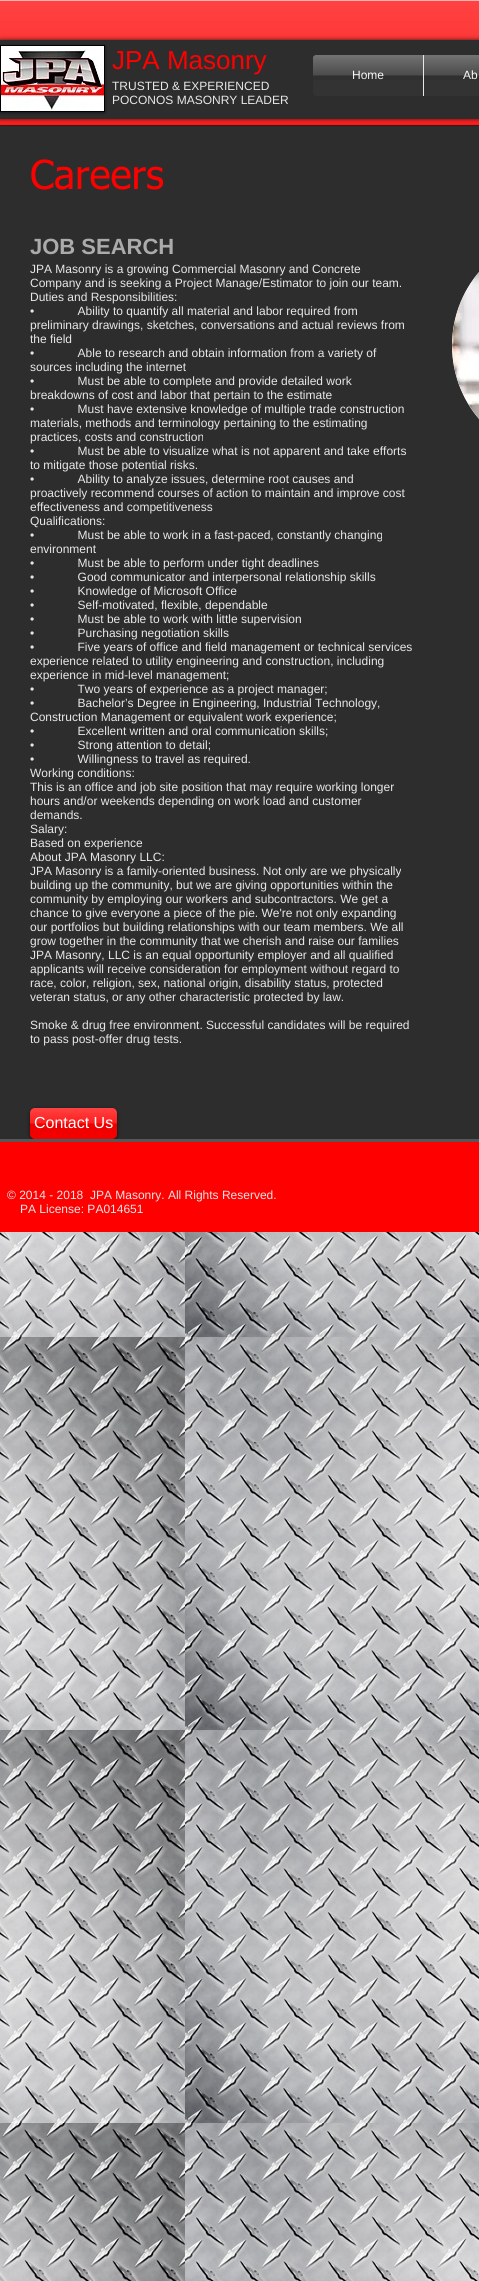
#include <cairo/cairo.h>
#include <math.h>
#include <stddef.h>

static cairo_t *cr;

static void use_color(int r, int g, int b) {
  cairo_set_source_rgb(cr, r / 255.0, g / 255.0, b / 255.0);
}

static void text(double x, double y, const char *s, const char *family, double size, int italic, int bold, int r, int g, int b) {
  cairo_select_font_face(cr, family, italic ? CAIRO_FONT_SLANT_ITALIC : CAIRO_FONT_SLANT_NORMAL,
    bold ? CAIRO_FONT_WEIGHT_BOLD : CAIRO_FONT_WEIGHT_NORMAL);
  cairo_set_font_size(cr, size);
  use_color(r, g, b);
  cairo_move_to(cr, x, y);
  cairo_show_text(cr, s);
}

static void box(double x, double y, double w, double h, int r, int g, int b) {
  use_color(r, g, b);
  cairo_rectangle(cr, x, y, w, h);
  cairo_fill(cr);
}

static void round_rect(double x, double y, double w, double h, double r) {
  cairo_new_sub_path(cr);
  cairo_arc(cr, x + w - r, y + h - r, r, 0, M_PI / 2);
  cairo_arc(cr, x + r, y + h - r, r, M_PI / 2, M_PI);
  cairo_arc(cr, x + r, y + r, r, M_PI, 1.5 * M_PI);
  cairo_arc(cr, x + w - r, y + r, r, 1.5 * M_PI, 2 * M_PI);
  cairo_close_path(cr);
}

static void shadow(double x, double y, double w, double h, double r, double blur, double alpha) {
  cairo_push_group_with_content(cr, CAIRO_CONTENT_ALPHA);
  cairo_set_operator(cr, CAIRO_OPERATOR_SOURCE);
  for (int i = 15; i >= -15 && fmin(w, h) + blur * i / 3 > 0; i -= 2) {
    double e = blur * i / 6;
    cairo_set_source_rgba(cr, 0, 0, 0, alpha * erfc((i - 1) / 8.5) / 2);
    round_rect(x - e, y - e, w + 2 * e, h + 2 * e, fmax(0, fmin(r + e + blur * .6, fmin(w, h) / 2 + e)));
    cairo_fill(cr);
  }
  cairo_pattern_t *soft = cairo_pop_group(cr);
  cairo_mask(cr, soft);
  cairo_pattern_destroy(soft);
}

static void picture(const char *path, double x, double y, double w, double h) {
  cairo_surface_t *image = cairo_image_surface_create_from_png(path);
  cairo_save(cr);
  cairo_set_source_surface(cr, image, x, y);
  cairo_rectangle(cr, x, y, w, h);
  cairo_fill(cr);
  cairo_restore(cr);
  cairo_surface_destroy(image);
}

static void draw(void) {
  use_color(255, 255, 255);
  cairo_paint(cr);
  box(0, 1, 479, 124, 255, 0, 0);
  picture("img_01.png", 0, 1, 479, 124);
  box(0, 125, 479, 1, 102, 14, 14);
  box(0, 0, 479, 1, 255, 179, 179);
  use_color(0, 0, 0);
  shadow(0, 40, 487, 79, 0, 2.5, 0.7);
  box(0, 40, 479, 79, 45, 45, 45);
  use_color(0, 0, 0);
  shadow(0, 46, 105, 67, 0, 1.5, 0.5);
  box(0, 45, 105, 67, 0, 0, 0);
  picture("img_02.png", 1, 46, 103, 65);
  picture("img_03.png", 313, 55, 4, 4);
  use_color(51, 51, 51);
  cairo_new_path(cr);
  cairo_move_to(cr, 317, 55);
  cairo_line_to(cr, 423, 55);
  cairo_line_to(cr, 423, 96);
  cairo_line_to(cr, 317, 96);
  cairo_curve_to(cr, 315, 96, 313, 94, 313, 92);
  cairo_line_to(cr, 313, 59);
  cairo_curve_to(cr, 313, 57, 315, 55, 317, 55);
  cairo_close_path(cr);
  cairo_fill(cr);
  box(424, 55, 55, 41, 51, 51, 51);
  box(423, 55, 1, 41, 232, 232, 232);
  use_color(0, 0, 0);
  shadow(0, 127, 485, 1013, 0, 2, 0.6);
  box(0, 126, 479, 1013, 45, 45, 45);
  use_color(255, 255, 255);
  cairo_new_path(cr);
  cairo_move_to(cr, 563, 233);
  cairo_curve_to(cr, 624.5, 233, 674, 283.5, 674, 345.5);
  cairo_curve_to(cr, 674, 407.5, 624.5, 458, 563, 458);
  cairo_curve_to(cr, 501.5, 458, 452, 407.5, 452, 345.5);
  cairo_curve_to(cr, 452, 283.5, 501.5, 233, 563, 233);
  cairo_close_path(cr);
  cairo_fill(cr);
  picture("img_06.png", 452, 272, 27, 147);
  use_color(0, 0, 0);
  shadow(30, 1109, 87, 31, 5, 2, 0.6);
  use_color(255, 0, 0);
  round_rect(30, 1108, 87, 31, 5);
  cairo_fill(cr);
  picture("img_07.png", 30, 1108, 87, 31);
  box(0, 1139, 479, 3, 87, 87, 87);
  box(0, 1142, 479, 90, 255, 0, 0);
  picture("img_08.png", 0, 1232, 479, 1049);
  text(112, 69, "JPA Masonry", "Liberation Sans", 26, 0, 0, 255, 0, 0);
  text(352, 79, "Home", "Liberation Sans", 12, 0, 0, 255, 255, 255);
  picture("img_04.png", 313, 55, 110, 25);
  text(463, 79, "Ab", "Liberation Sans", 12, 0, 0, 255, 255, 255);
  picture("img_05.png", 424, 55, 55, 25);
  text(112, 90, "TRUSTED & EXPERIENCED", "Liberation Sans", 12, 0, 0, 232, 232, 232);
  text(112, 104, "POCONOS MASONRY LEADER", "Liberation Sans", 12, 0, 0, 232, 232, 232);
  text(30, 189, "Careers", "tahoma", 40, 0, 0, 255, 0, 0);
  text(30, 254, "JOB SEARCH", "Liberation Sans", 22, 0, 1, 171, 171, 171);
  text(30, 273, "JPA Masonry is a growing Commercial Masonry and Concrete", "Liberation Sans", 12, 0, 0, 232, 232, 232);
  text(30, 287, "Company and is seeking a Project Manage/Estimator to join our team.", "Liberation Sans", 12, 0, 0, 232, 232, 232);
  text(30, 301, "Duties and Responsibilities:", "Liberation Sans", 12, 0, 0, 232, 232, 232);
  text(30, 315, "•             Ability to quantify all material and labor required from", "Liberation Sans", 12, 0, 0, 232, 232, 232);
  text(30, 329, "preliminary drawings, sketches, conversations and actual reviews from", "Liberation Sans", 12, 0, 0, 232, 232, 232);
  text(30, 343, "the field", "Liberation Sans", 12, 0, 0, 232, 232, 232);
  text(30, 357, "•             Able to research and obtain information from a variety of", "Liberation Sans", 12, 0, 0, 232, 232, 232);
  text(30, 371, "sources including the internet", "Liberation Sans", 12, 0, 0, 232, 232, 232);
  text(30, 385, "•             Must be able to complete and provide detailed work", "Liberation Sans", 12, 0, 0, 232, 232, 232);
  text(30, 399, "breakdowns of cost and labor that pertain to the estimate", "Liberation Sans", 12, 0, 0, 232, 232, 232);
  text(30, 413, "•             Must have extensive knowledge of multiple trade construction", "Liberation Sans", 12, 0, 0, 232, 232, 232);
  text(30, 427, "materials, methods and terminology pertaining to the estimating", "Liberation Sans", 12, 0, 0, 232, 232, 232);
  text(30, 441, "practices, costs and construction", "Liberation Sans", 12, 0, 0, 232, 232, 232);
  text(30, 455, "•             Must be able to visualize what is not apparent and take efforts", "Liberation Sans", 12, 0, 0, 232, 232, 232);
  text(30, 469, "to mitigate those potential risks.", "Liberation Sans", 12, 0, 0, 232, 232, 232);
  text(30, 483, "•             Ability to analyze issues, determine root causes and", "Liberation Sans", 12, 0, 0, 232, 232, 232);
  text(30, 497, "proactively recommend courses of action to maintain and improve cost", "Liberation Sans", 12, 0, 0, 232, 232, 232);
  text(30, 511, "effectiveness and competitiveness", "Liberation Sans", 12, 0, 0, 232, 232, 232);
  text(30, 525, "Qualifications:", "Liberation Sans", 12, 0, 0, 232, 232, 232);
  text(30, 539, "•             Must be able to work in a fast-paced, constantly changing", "Liberation Sans", 12, 0, 0, 232, 232, 232);
  text(30, 553, "environment", "Liberation Sans", 12, 0, 0, 232, 232, 232);
  text(30, 567, "•             Must be able to perform under tight deadlines", "Liberation Sans", 12, 0, 0, 232, 232, 232);
  text(30, 581, "•             Good communicator and interpersonal relationship skills", "Liberation Sans", 12, 0, 0, 232, 232, 232);
  text(30, 595, "•             Knowledge of Microsoft Office", "Liberation Sans", 12, 0, 0, 232, 232, 232);
  text(30, 609, "•             Self-motivated, flexible, dependable", "Liberation Sans", 12, 0, 0, 232, 232, 232);
  text(30, 623, "•             Must be able to work with little supervision", "Liberation Sans", 12, 0, 0, 232, 232, 232);
  text(30, 637, "•             Purchasing negotiation skills", "Liberation Sans", 12, 0, 0, 232, 232, 232);
  text(30, 651, "•             Five years of office and field management or technical services", "Liberation Sans", 12, 0, 0, 232, 232, 232);
  text(30, 665, "experience related to utility engineering and construction, including", "Liberation Sans", 12, 0, 0, 232, 232, 232);
  text(30, 679, "experience in mid-level management;", "Liberation Sans", 12, 0, 0, 232, 232, 232);
  text(30, 693, "•             Two years of experience as a project manager;", "Liberation Sans", 12, 0, 0, 232, 232, 232);
  text(30, 707, "•             Bachelor’s Degree in Engineering, Industrial Technology,", "Liberation Sans", 12, 0, 0, 232, 232, 232);
  text(30, 721, "Construction Management or equivalent work experience;", "Liberation Sans", 12, 0, 0, 232, 232, 232);
  text(30, 735, "•             Excellent written and oral communication skills;", "Liberation Sans", 12, 0, 0, 232, 232, 232);
  text(30, 749, "•             Strong attention to detail;", "Liberation Sans", 12, 0, 0, 232, 232, 232);
  text(30, 763, "•             Willingness to travel as required.", "Liberation Sans", 12, 0, 0, 232, 232, 232);
  text(30, 777, "Working conditions:", "Liberation Sans", 12, 0, 0, 232, 232, 232);
  text(30, 791, "This is an office and job site position that may require working longer", "Liberation Sans", 12, 0, 0, 232, 232, 232);
  text(30, 805, "hours and/or weekends depending on work load and customer", "Liberation Sans", 12, 0, 0, 232, 232, 232);
  text(30, 819, "demands.", "Liberation Sans", 12, 0, 0, 232, 232, 232);
  text(30, 833, "Salary:", "Liberation Sans", 12, 0, 0, 232, 232, 232);
  text(30, 847, "Based on experience", "Liberation Sans", 12, 0, 0, 232, 232, 232);
  text(30, 861, "About JPA Masonry LLC:", "Liberation Sans", 12, 0, 0, 232, 232, 232);
  text(30, 875, "JPA Masonry is a family-oriented business. Not only are we physically", "Liberation Sans", 12, 0, 0, 232, 232, 232);
  text(30, 889, "building up the community, but we are giving opportunities within the", "Liberation Sans", 12, 0, 0, 232, 232, 232);
  text(30, 903, "community by employing our workers and subcontractors. We get a", "Liberation Sans", 12, 0, 0, 232, 232, 232);
  text(30, 917, "chance to give everyone a piece of the pie. We're not only expanding", "Liberation Sans", 12, 0, 0, 232, 232, 232);
  text(30, 931, "our portfolios but building relationships with our team members. We all", "Liberation Sans", 12, 0, 0, 232, 232, 232);
  text(30, 945, "grow together in the community that we cherish and raise our families", "Liberation Sans", 12, 0, 0, 232, 232, 232);
  text(30, 959, "JPA Masonry, LLC is an equal opportunity employer and all qualified", "Liberation Sans", 12, 0, 0, 232, 232, 232);
  text(30, 973, "applicants will receive consideration for employment without regard to", "Liberation Sans", 12, 0, 0, 232, 232, 232);
  text(30, 987, "race, color, religion, sex, national origin, disability status, protected", "Liberation Sans", 12, 0, 0, 232, 232, 232);
  text(30, 1001, "veteran status, or any other characteristic protected by law.", "Liberation Sans", 12, 0, 0, 232, 232, 232);
  text(30, 1029, "Smoke & drug free environment. Successful candidates will be required", "Liberation Sans", 12, 0, 0, 232, 232, 232);
  text(30, 1043, "to pass post-offer drug tests.", "Liberation Sans", 12, 0, 0, 232, 232, 232);
  text(34, 1128, "Contact Us", "Liberation Sans", 16, 0, 0, 255, 255, 255);
  text(7, 1199, "© 2014 - 2018  JPA Masonry. All Rights Reserved.", "Liberation Sans", 12, 0, 0, 232, 232, 232);
  text(20, 1213, "PA License: PA014651", "Liberation Sans", 12, 0, 0, 232, 232, 232);
}

int main(void) {
  cairo_surface_t *surface = cairo_image_surface_create(CAIRO_FORMAT_RGB24, 479, 2281);
  cr = cairo_create(surface);
  cairo_font_options_t *options = cairo_font_options_create();
  cairo_font_options_set_hint_metrics(options, CAIRO_HINT_METRICS_OFF);
  cairo_font_options_set_hint_style(options, CAIRO_HINT_STYLE_NONE);
  cairo_set_font_options(cr, options);
  cairo_set_miter_limit(cr, 4);
  draw();
  cairo_surface_write_to_png(surface, "out.png");
  cairo_font_options_destroy(options);
  cairo_destroy(cr);
  cairo_surface_destroy(surface);
  return 0;
}
